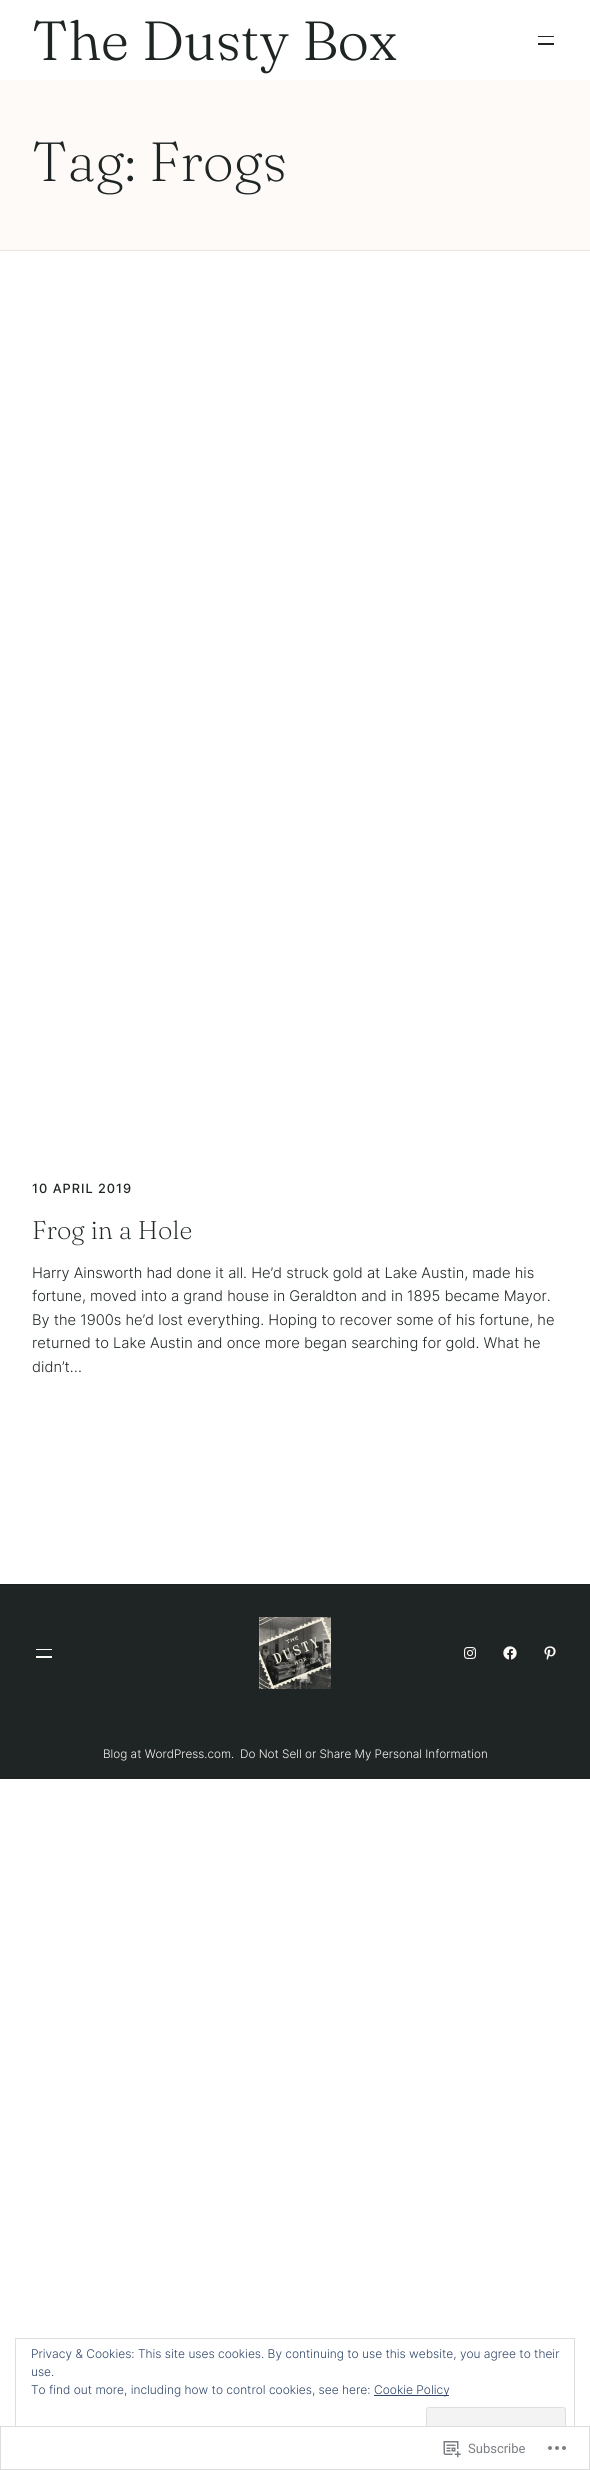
#include <cairo/cairo.h>
#include <math.h>
#include <stddef.h>

static cairo_t *cr;

static void use_color(int r, int g, int b) {
  cairo_set_source_rgb(cr, r / 255.0, g / 255.0, b / 255.0);
}

static void text(double x, double y, const char *s, const char *family, double size, int italic, int bold, int r, int g, int b) {
  cairo_select_font_face(cr, family, italic ? CAIRO_FONT_SLANT_ITALIC : CAIRO_FONT_SLANT_NORMAL,
    bold ? CAIRO_FONT_WEIGHT_BOLD : CAIRO_FONT_WEIGHT_NORMAL);
  cairo_set_font_size(cr, size);
  use_color(r, g, b);
  cairo_move_to(cr, x, y);
  cairo_show_text(cr, s);
}

static void spaced_text(double x, double y, const char *s, double letter, double word) {
  cairo_move_to(cr, x, y);
  while (*s) {
    char ch[5] = {0};
    int n = 0;
    do ch[n++] = *s++; while ((*s & 0xC0) == 0x80);
    cairo_show_text(cr, ch);
    cairo_rel_move_to(cr, letter + word * (*ch == ' '), 0);
  }
}

static void box(double x, double y, double w, double h, int r, int g, int b) {
  use_color(r, g, b);
  cairo_rectangle(cr, x, y, w, h);
  cairo_fill(cr);
}

static void round_rect(double x, double y, double w, double h, double r) {
  cairo_new_sub_path(cr);
  cairo_arc(cr, x + w - r, y + h - r, r, 0, M_PI / 2);
  cairo_arc(cr, x + r, y + h - r, r, M_PI / 2, M_PI);
  cairo_arc(cr, x + r, y + r, r, M_PI, 1.5 * M_PI);
  cairo_arc(cr, x + w - r, y + r, r, 1.5 * M_PI, 2 * M_PI);
  cairo_close_path(cr);
}

static void picture(const char *path, double x, double y, double w, double h) {
  cairo_surface_t *image = cairo_image_surface_create_from_png(path);
  cairo_save(cr);
  cairo_set_source_surface(cr, image, x, y);
  cairo_rectangle(cr, x, y, w, h);
  cairo_fill(cr);
  cairo_restore(cr);
  cairo_surface_destroy(image);
}

static void draw(void) {
  use_color(255, 255, 255);
  cairo_paint(cr);
  box(538, 36, 16, 1, 31, 37, 37);
  box(538, 43, 16, 2, 31, 37, 37);
  box(0, 80, 590, 170, 254, 250, 248);
  box(0, 250, 590, 1, 232, 229, 227);
  box(0, 1585, 590, 194, 31, 37, 37);
  box(0, 1584, 590, 1, 28, 33, 33);
  box(36, 1649, 16, 1, 254, 250, 248);
  box(36, 1656, 16, 2, 254, 250, 248);
  picture("img_01.png", 259, 1617, 72, 72);
  picture("img_02.png", 464, 1647, 12, 12);
  picture("img_03.png", 503, 1646, 14, 14);
  picture("img_04.png", 544, 1646, 12, 14);
  cairo_rectangle(cr, 15.5, 2338.5, 559, 116);
  use_color(222, 222, 222);
  cairo_set_line_width(cr, 1);
  cairo_stroke(cr);
  box(374, 2395, 75, 1, 46, 68, 103);
  use_color(243, 243, 243);
  round_rect(426.5, 2407.5, 139, 38, 2.5);
  cairo_fill_preserve(cr);
  use_color(222, 222, 222);
  cairo_stroke(cr);
  cairo_set_source_rgba(cr, 1, 1, 1, 0.98);
  cairo_rectangle(cr, 15, 2426, 560, 29);
  cairo_fill(cr);
  cairo_rectangle(cr, 0.5, 2426.5, 589, 43);
  cairo_set_source_rgba(cr, 0.863, 0.863, 0.871, 0.98);
  cairo_stroke(cr);
  picture("img_05.png", 443, 2441, 18, 17);
  picture("img_06.png", 548, 2446, 18, 4);
  text(32, 60, "The Dusty Box", "Fraunces Light", 55, 0, 0, 31, 37, 37);
  text(32, 181, "Tag: Frogs", "Fraunces ExtraLight", 55, 0, 0, 31, 37, 37);
  cairo_select_font_face(cr, "Inter Medium", CAIRO_FONT_SLANT_NORMAL, CAIRO_FONT_WEIGHT_NORMAL);
  cairo_set_font_size(cr, 12.75);
  spaced_text(32, 1193, "10 APRIL 2019", 1, 0);
  text(32, 1239, "Frog in a Hole", "Fraunces ExtraLight", 25.5, 0, 0, 31, 37, 37);
  text(32, 1278, "Harry Ainsworth had done it all. He’d struck gold at Lake Austin, made his", "Inter Light", 14.7, 0, 0, 31, 37, 37);
  text(32, 1301, "fortune, moved into a grand house in Geraldton and in 1895 became Mayor.", "Inter Light", 14.7, 0, 0, 31, 37, 37);
  text(32, 1325, "By the 1900s he’d lost everything. Hoping to recover some of his fortune, he", "Inter Light", 14.7, 0, 0, 31, 37, 37);
  text(32, 1348, "returned to Lake Austin and once more began searching for gold. What he", "Inter Light", 14.7, 0, 0, 31, 37, 37);
  text(32, 1372, "didn’t…", "Inter Light", 14.7, 0, 0, 31, 37, 37);
  text(103, 1758, "Blog at WordPress.com.", "Inter Light", 11.75, 0, 0, 254, 250, 248);
  text(240, 1758, "Do Not Sell or Share My Personal Information", "Inter Light", 11.75, 0, 0, 254, 250, 248);
  text(31, 2358, "Privacy & Cookies: This site uses cookies. By continuing to use this website, you agree to their", "Inter Light", 12, 0, 0, 46, 68, 103);
  text(31, 2376, "use.", "Inter Light", 12, 0, 0, 46, 68, 103);
  text(31, 2394, "To find out more, including how to control cookies, see here:", "Inter Light", 12, 0, 0, 46, 68, 103);
  text(374, 2394, "Cookie Policy", "Inter Light", 12, 0, 0, 46, 68, 103);
  text(468, 2453, "Subscribe", "Roboto", 13, 0, 0, 123, 127, 132);
}

int main(void) {
  cairo_surface_t *surface = cairo_image_surface_create(CAIRO_FORMAT_RGB24, 590, 2470);
  cr = cairo_create(surface);
  cairo_font_options_t *options = cairo_font_options_create();
  cairo_font_options_set_hint_metrics(options, CAIRO_HINT_METRICS_OFF);
  cairo_font_options_set_hint_style(options, CAIRO_HINT_STYLE_NONE);
  cairo_set_font_options(cr, options);
  cairo_set_miter_limit(cr, 4);
  draw();
  cairo_surface_write_to_png(surface, "out.png");
  cairo_font_options_destroy(options);
  cairo_destroy(cr);
  cairo_surface_destroy(surface);
  return 0;
}
